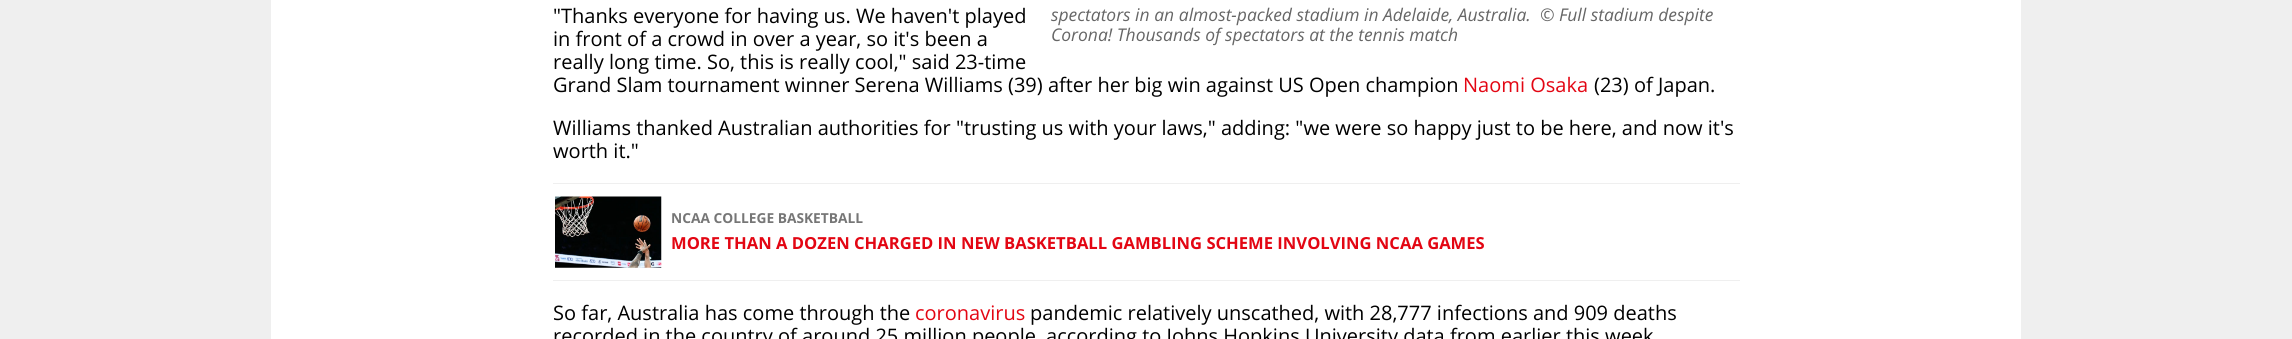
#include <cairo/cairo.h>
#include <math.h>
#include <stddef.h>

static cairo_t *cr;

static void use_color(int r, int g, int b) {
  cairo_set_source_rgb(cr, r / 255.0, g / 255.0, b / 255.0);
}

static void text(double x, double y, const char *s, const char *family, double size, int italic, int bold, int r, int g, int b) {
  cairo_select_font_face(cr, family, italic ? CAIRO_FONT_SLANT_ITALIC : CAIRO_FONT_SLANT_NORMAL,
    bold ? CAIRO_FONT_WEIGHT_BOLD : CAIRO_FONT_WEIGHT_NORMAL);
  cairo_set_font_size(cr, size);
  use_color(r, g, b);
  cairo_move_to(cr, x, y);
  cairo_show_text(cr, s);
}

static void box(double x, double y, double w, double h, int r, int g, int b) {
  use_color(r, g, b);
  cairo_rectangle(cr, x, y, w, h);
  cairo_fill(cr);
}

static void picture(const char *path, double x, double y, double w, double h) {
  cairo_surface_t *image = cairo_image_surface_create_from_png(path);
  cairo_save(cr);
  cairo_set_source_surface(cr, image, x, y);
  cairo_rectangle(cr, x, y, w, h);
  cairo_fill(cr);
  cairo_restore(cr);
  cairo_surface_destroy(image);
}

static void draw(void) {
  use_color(239, 239, 239);
  cairo_paint(cr);
  box(271, 0, 1750, 339, 255, 255, 255);
  box(553, 183, 1187, 1, 239, 239, 239);
  box(553, 280, 1187, 1, 239, 239, 239);
  picture("img_01.png", 555, 196, 107, 72);
  text(553, 23, "\"Thanks everyone for having us. We haven't played", "Open Sans", 20, 0, 0, 0, 0, 0);
  text(553, 46, "in front of a crowd in over a year, so it's been a", "Open Sans", 20, 0, 0, 0, 0, 0);
  text(553, 69, "really long time. So, this is really cool,\" said 23-time", "Open Sans", 20, 0, 0, 0, 0, 0);
  text(553, 92, "Grand Slam tournament winner Serena Williams (39) after her big win against US Open champion", "Open Sans", 20, 0, 0, 0, 0, 0);
  text(1463, 92, "Naomi Osaka", "Open Sans", 20, 0, 0, 227, 6, 19);
  text(1594, 92, "(23) of Japan.", "Open Sans", 20, 0, 0, 0, 0, 0);
  text(1051, 21, "spectators in an almost-packed stadium in Adelaide, Australia.  © Full stadium despite", "Open Sans", 17.5, 1, 0, 102, 102, 102);
  text(1051, 41, "Corona! Thousands of spectators at the tennis match", "Open Sans", 17.5, 1, 0, 102, 102, 102);
  text(553, 135, "Williams thanked Australian authorities for \"trusting us with your laws,\" adding: \"we were so happy just to be here, and now it's", "Open Sans", 20, 0, 0, 0, 0, 0);
  text(553, 158, "worth it.\"", "Open Sans", 20, 0, 0, 0, 0, 0);
  text(671, 223, "NCAA COLLEGE BASKETBALL", "Open Sans", 13.75, 0, 1, 118, 118, 118);
  text(671, 249, "MORE THAN A DOZEN CHARGED IN NEW BASKETBALL GAMBLING SCHEME INVOLVING NCAA GAMES", "Open Sans", 16.6, 0, 1, 227, 6, 19);
  text(553, 320, "So far, Australia has come through the", "Open Sans", 20, 0, 0, 0, 0, 0);
  text(915, 320, "coronavirus", "Open Sans", 20, 0, 0, 227, 6, 19);
  text(1030, 320, "pandemic relatively unscathed, with 28,777 infections and 909 deaths", "Open Sans", 20, 0, 0, 0, 0, 0);
  text(553, 343, "recorded in the country of around 25 million people, according to Johns Hopkins University data from earlier this week", "Open Sans", 20, 0, 0, 0, 0, 0);
}

int main(void) {
  cairo_surface_t *surface = cairo_image_surface_create(CAIRO_FORMAT_RGB24, 2292, 339);
  cr = cairo_create(surface);
  cairo_font_options_t *options = cairo_font_options_create();
  cairo_font_options_set_hint_metrics(options, CAIRO_HINT_METRICS_OFF);
  cairo_font_options_set_hint_style(options, CAIRO_HINT_STYLE_NONE);
  cairo_set_font_options(cr, options);
  cairo_set_miter_limit(cr, 4);
  draw();
  cairo_surface_write_to_png(surface, "out.png");
  cairo_font_options_destroy(options);
  cairo_destroy(cr);
  cairo_surface_destroy(surface);
  return 0;
}
